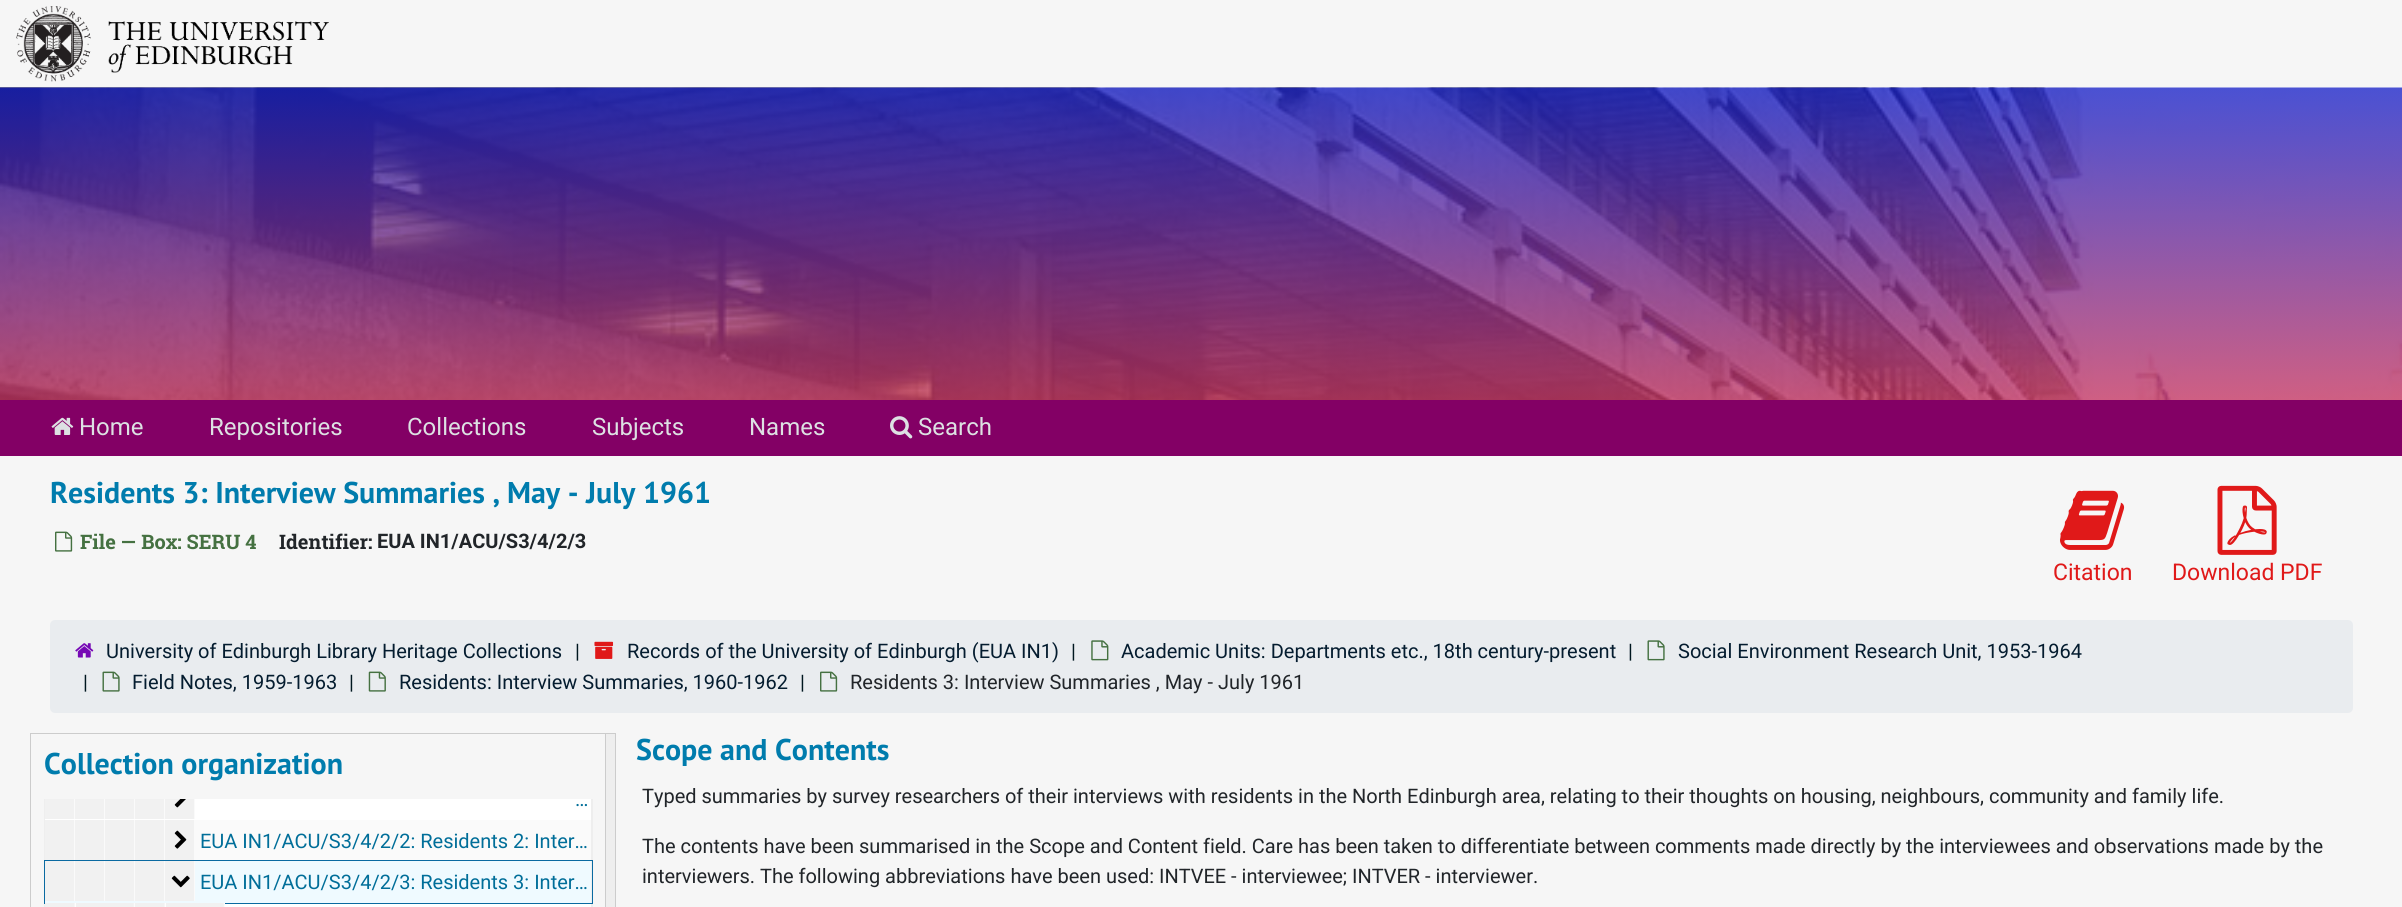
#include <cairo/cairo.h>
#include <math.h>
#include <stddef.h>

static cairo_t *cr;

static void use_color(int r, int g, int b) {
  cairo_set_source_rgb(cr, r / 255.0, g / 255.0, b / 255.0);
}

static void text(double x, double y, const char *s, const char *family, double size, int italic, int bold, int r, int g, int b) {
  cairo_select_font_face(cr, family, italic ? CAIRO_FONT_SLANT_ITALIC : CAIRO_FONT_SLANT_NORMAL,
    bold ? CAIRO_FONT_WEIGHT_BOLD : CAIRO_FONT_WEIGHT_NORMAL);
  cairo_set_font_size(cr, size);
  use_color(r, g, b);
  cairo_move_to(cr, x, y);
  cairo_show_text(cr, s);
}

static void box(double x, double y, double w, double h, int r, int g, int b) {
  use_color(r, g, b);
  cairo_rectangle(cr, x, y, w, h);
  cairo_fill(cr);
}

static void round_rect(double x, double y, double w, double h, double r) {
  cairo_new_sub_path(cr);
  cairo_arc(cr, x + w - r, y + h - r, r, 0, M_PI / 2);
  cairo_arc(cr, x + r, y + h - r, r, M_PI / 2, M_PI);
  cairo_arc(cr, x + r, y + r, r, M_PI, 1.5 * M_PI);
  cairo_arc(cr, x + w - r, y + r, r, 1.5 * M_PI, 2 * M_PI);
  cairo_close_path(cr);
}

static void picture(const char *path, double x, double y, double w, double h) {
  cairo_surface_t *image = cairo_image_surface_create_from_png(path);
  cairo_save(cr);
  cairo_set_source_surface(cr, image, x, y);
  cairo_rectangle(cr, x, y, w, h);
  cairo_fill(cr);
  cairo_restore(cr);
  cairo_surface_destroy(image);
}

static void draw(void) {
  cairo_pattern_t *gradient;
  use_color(246, 246, 246);
  cairo_paint(cr);
  picture("img_01.png", 16, 6, 313, 76);
  picture("img_02.png", 0, 87, 2402, 313);
  box(0, 400, 2402, 56, 131, 0, 101);
  picture("img_03.png", 51, 417, 23, 18);
  picture("img_04.png", 890, 416, 23, 23);
  picture("img_05.png", 55, 531, 18, 21);
  picture("img_06.png", 2060, 490, 65, 60);
  picture("img_07.png", 2217, 485, 60, 70);
  use_color(233, 236, 239);
  round_rect(50, 620, 2303, 93, 5);
  cairo_fill(cr);
  picture("img_08.png", 75, 643, 19, 15);
  picture("img_09.png", 594, 641, 20, 18);
  picture("img_10.png", 1091, 640, 18, 21);
  picture("img_11.png", 1647, 640, 18, 21);
  picture("img_12.png", 102, 671, 18, 21);
  picture("img_13.png", 368, 671, 18, 21);
  picture("img_14.png", 820, 671, 18, 21);
  cairo_rectangle(cr, 30.5, 733.5, 585, 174);
  use_color(204, 204, 204);
  cairo_set_line_width(cr, 1);
  cairo_stroke(cr);
  box(606, 734, 9, 173, 238, 238, 238);
  box(605, 734, 1, 173, 204, 204, 204);
  box(44, 799, 549, 108, 238, 238, 238);
  box(45, 799, 546, 21, 255, 255, 255);
  gradient = cairo_pattern_create_linear(45, 799, 195, 799);
  cairo_pattern_add_color_stop_rgba(gradient, 0, 0.945, 0.945, 0.945, 1);
  cairo_pattern_add_color_stop_rgba(gradient, 0.19, 0.945, 0.945, 0.945, 1);
  cairo_pattern_add_color_stop_rgba(gradient, 0.2, 1, 1, 1, 1);
  cairo_pattern_add_color_stop_rgba(gradient, 0.2, 0.945, 0.945, 0.945, 1);
  cairo_pattern_add_color_stop_rgba(gradient, 0.39, 0.945, 0.945, 0.945, 1);
  cairo_pattern_add_color_stop_rgba(gradient, 0.4, 1, 1, 1, 1);
  cairo_pattern_add_color_stop_rgba(gradient, 0.4, 0.945, 0.945, 0.945, 1);
  cairo_pattern_add_color_stop_rgba(gradient, 0.59, 0.945, 0.945, 0.945, 1);
  cairo_pattern_add_color_stop_rgba(gradient, 0.6, 1, 1, 1, 1);
  cairo_pattern_add_color_stop_rgba(gradient, 0.6, 0.945, 0.945, 0.945, 1);
  cairo_pattern_add_color_stop_rgba(gradient, 0.79, 0.945, 0.945, 0.945, 1);
  cairo_pattern_add_color_stop_rgba(gradient, 0.8, 1, 1, 1, 1);
  cairo_pattern_add_color_stop_rgba(gradient, 0.8, 0.945, 0.945, 0.945, 1);
  cairo_pattern_add_color_stop_rgba(gradient, 0.99, 0.945, 0.945, 0.945, 1);
  cairo_pattern_add_color_stop_rgba(gradient, 1, 1, 1, 1, 1);
  cairo_set_source(cr, gradient);
  cairo_pattern_destroy(gradient);
  cairo_rectangle(cr, 45, 799, 150, 20);
  cairo_fill(cr);
  picture("img_15.png", 174, 799, 12, 9);
  box(195, 820, 396, 40, 250, 250, 250);
  gradient = cairo_pattern_create_linear(45, 840, 195, 840);
  cairo_pattern_add_color_stop_rgba(gradient, 0, 0.945, 0.945, 0.945, 1);
  cairo_pattern_add_color_stop_rgba(gradient, 0.19, 0.945, 0.945, 0.945, 1);
  cairo_pattern_add_color_stop_rgba(gradient, 0.2, 1, 1, 1, 1);
  cairo_pattern_add_color_stop_rgba(gradient, 0.2, 0.945, 0.945, 0.945, 1);
  cairo_pattern_add_color_stop_rgba(gradient, 0.39, 0.945, 0.945, 0.945, 1);
  cairo_pattern_add_color_stop_rgba(gradient, 0.4, 1, 1, 1, 1);
  cairo_pattern_add_color_stop_rgba(gradient, 0.4, 0.945, 0.945, 0.945, 1);
  cairo_pattern_add_color_stop_rgba(gradient, 0.59, 0.945, 0.945, 0.945, 1);
  cairo_pattern_add_color_stop_rgba(gradient, 0.6, 1, 1, 1, 1);
  cairo_pattern_add_color_stop_rgba(gradient, 0.6, 0.945, 0.945, 0.945, 1);
  cairo_pattern_add_color_stop_rgba(gradient, 0.79, 0.945, 0.945, 0.945, 1);
  cairo_pattern_add_color_stop_rgba(gradient, 0.8, 1, 1, 1, 1);
  cairo_pattern_add_color_stop_rgba(gradient, 0.8, 0.945, 0.945, 0.945, 1);
  cairo_pattern_add_color_stop_rgba(gradient, 0.99, 0.945, 0.945, 0.945, 1);
  cairo_pattern_add_color_stop_rgba(gradient, 1, 1, 1, 1, 1);
  cairo_set_source(cr, gradient);
  cairo_pattern_destroy(gradient);
  cairo_rectangle(cr, 45, 820, 150, 40);
  cairo_fill(cr);
  picture("img_16.png", 174, 830, 13, 19);
  cairo_rectangle(cr, 44.5, 860.5, 548, 43);
  use_color(10, 106, 161);
  cairo_stroke(cr);
  box(45, 861, 546, 42, 239, 250, 255);
  gradient = cairo_pattern_create_linear(45, 881, 195, 881);
  cairo_pattern_add_color_stop_rgba(gradient, 0, 0.945, 0.945, 0.945, 1);
  cairo_pattern_add_color_stop_rgba(gradient, 0.19, 0.945, 0.945, 0.945, 1);
  cairo_pattern_add_color_stop_rgba(gradient, 0.2, 1, 1, 1, 1);
  cairo_pattern_add_color_stop_rgba(gradient, 0.2, 0.945, 0.945, 0.945, 1);
  cairo_pattern_add_color_stop_rgba(gradient, 0.39, 0.945, 0.945, 0.945, 1);
  cairo_pattern_add_color_stop_rgba(gradient, 0.4, 1, 1, 1, 1);
  cairo_pattern_add_color_stop_rgba(gradient, 0.4, 0.945, 0.945, 0.945, 1);
  cairo_pattern_add_color_stop_rgba(gradient, 0.59, 0.945, 0.945, 0.945, 1);
  cairo_pattern_add_color_stop_rgba(gradient, 0.6, 1, 1, 1, 1);
  cairo_pattern_add_color_stop_rgba(gradient, 0.6, 0.945, 0.945, 0.945, 1);
  cairo_pattern_add_color_stop_rgba(gradient, 0.79, 0.945, 0.945, 0.945, 1);
  cairo_pattern_add_color_stop_rgba(gradient, 0.8, 1, 1, 1, 1);
  cairo_pattern_add_color_stop_rgba(gradient, 0.8, 0.945, 0.945, 0.945, 1);
  cairo_pattern_add_color_stop_rgba(gradient, 0.99, 0.945, 0.945, 0.945, 1);
  cairo_pattern_add_color_stop_rgba(gradient, 1, 1, 1, 1, 1);
  cairo_set_source(cr, gradient);
  cairo_pattern_destroy(gradient);
  cairo_rectangle(cr, 45, 861, 150, 40);
  cairo_fill(cr);
  picture("img_17.png", 171, 875, 19, 13);
  box(225, 904, 366, 3, 255, 255, 255);
  gradient = cairo_pattern_create_linear(45, 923, 225, 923);
  cairo_pattern_add_color_stop_rgba(gradient, 0, 0.945, 0.945, 0.945, 1);
  cairo_pattern_add_color_stop_rgba(gradient, 0.16, 0.945, 0.945, 0.945, 1);
  cairo_pattern_add_color_stop_rgba(gradient, 0.17, 1, 1, 1, 1);
  cairo_pattern_add_color_stop_rgba(gradient, 0.17, 0.945, 0.945, 0.945, 1);
  cairo_pattern_add_color_stop_rgba(gradient, 0.33, 0.945, 0.945, 0.945, 1);
  cairo_pattern_add_color_stop_rgba(gradient, 0.33, 1, 1, 1, 1);
  cairo_pattern_add_color_stop_rgba(gradient, 0.33, 0.945, 0.945, 0.945, 1);
  cairo_pattern_add_color_stop_rgba(gradient, 0.49, 0.945, 0.945, 0.945, 1);
  cairo_pattern_add_color_stop_rgba(gradient, 0.5, 1, 1, 1, 1);
  cairo_pattern_add_color_stop_rgba(gradient, 0.5, 0.945, 0.945, 0.945, 1);
  cairo_pattern_add_color_stop_rgba(gradient, 0.66, 0.945, 0.945, 0.945, 1);
  cairo_pattern_add_color_stop_rgba(gradient, 0.67, 1, 1, 1, 1);
  cairo_pattern_add_color_stop_rgba(gradient, 0.67, 0.945, 0.945, 0.945, 1);
  cairo_pattern_add_color_stop_rgba(gradient, 0.83, 0.945, 0.945, 0.945, 1);
  cairo_pattern_add_color_stop_rgba(gradient, 0.83, 1, 1, 1, 1);
  cairo_pattern_add_color_stop_rgba(gradient, 0.83, 0.945, 0.945, 0.945, 1);
  cairo_pattern_add_color_stop_rgba(gradient, 0.99, 0.945, 0.945, 0.945, 1);
  cairo_pattern_add_color_stop_rgba(gradient, 1, 1, 1, 1, 1);
  cairo_set_source(cr, gradient);
  cairo_pattern_destroy(gradient);
  cairo_rectangle(cr, 45, 903, 180, 4);
  cairo_fill(cr);
  text(79, 435, "Home", "Roboto", 24, 0, 0, 221, 225, 227);
  text(209, 435, "Repositories", "Roboto", 24, 0, 0, 221, 225, 227);
  text(407, 435, "Collections", "Roboto", 24, 0, 0, 221, 225, 227);
  text(592, 435, "Subjects", "Roboto", 24, 0, 0, 221, 225, 227);
  text(749, 435, "Names", "Roboto", 24, 0, 0, 221, 225, 227);
  text(918, 435, "Search", "Roboto", 24, 0, 0, 221, 225, 227);
  text(50, 503, "Residents 3: Interview Summaries , May - July 1961", "PT Sans", 30, 0, 1, 0, 124, 173);
  text(80, 549, "File — Box: SERU 4", "Roboto Slab", 20, 0, 1, 69, 113, 65);
  text(279, 549, "Identifier:", "Roboto Slab", 20, 0, 1, 33, 37, 41);
  text(377, 548, "EUA IN1/ACU/S3/4/2/3", "Roboto", 20, 0, 1, 33, 37, 41);
  text(2053, 580, "Citation", "Roboto", 23, 0, 0, 224, 25, 25);
  text(2172, 580, "Download PDF", "Roboto", 23, 0, 0, 224, 25, 25);
  text(106, 658, "University of Edinburgh Library Heritage Collections", "Roboto", 20, 0, 0, 4, 28, 47);
  text(575, 658, "|", "Roboto", 20, 0, 0, 0, 23, 31);
  text(627, 658, "Records of the University of Edinburgh (EUA IN1)", "Roboto", 20, 0, 0, 4, 28, 47);
  text(1071, 658, "|", "Roboto", 20, 0, 0, 0, 23, 31);
  text(1121, 658, "Academic Units: Departments etc., 18th century-present", "Roboto", 20, 0, 0, 4, 28, 47);
  text(1628, 658, "|", "Roboto", 20, 0, 0, 0, 23, 31);
  text(1678, 658, "Social Environment Research Unit, 1953-1964", "Roboto", 20, 0, 0, 4, 28, 47);
  text(83, 689, "|", "Roboto", 20, 0, 0, 0, 23, 31);
  text(132, 689, "Field Notes, 1959-1963", "Roboto", 20, 0, 0, 4, 28, 47);
  text(349, 689, "|", "Roboto", 20, 0, 0, 0, 23, 31);
  text(399, 689, "Residents: Interview Summaries, 1960-1962", "Roboto", 20, 0, 0, 4, 28, 47);
  text(800, 689, "|", "Roboto", 20, 0, 0, 0, 23, 31);
  text(850, 689, "Residents 3: Interview Summaries , May - July 1961", "Roboto", 20, 0, 0, 33, 37, 41);
  text(44, 774, "Collection organization", "PT Sans", 30, 0, 1, 0, 124, 173);
  text(575, 806, "…", "Roboto", 20, 0, 0, 0, 110, 153);
  text(200, 848, "EUA IN1/ACU/S3/4/2/2: Residents 2: Inter…", "Roboto", 20, 0, 0, 0, 110, 153);
  text(200, 889, "EUA IN1/ACU/S3/4/2/3: Residents 3: Inter…", "Roboto", 20, 0, 0, 0, 110, 153);
  text(636, 760, "Scope and Contents", "PT Sans", 30, 0, 1, 0, 124, 173);
  text(642, 803, "Typed summaries by survey researchers of their interviews with residents in the North Edinburgh area, relating to their thoughts on housing, neighbours, community and family life.", "Roboto", 20, 0, 0, 33, 37, 41);
  text(642, 853, "The contents have been summarised in the Scope and Content field. Care has been taken to differentiate between comments made directly by the interviewees and observations made by the", "Roboto", 20, 0, 0, 33, 37, 41);
  text(642, 883, "interviewers. The following abbreviations have been used: INTVEE - interviewee; INTVER - interviewer.", "Roboto", 20, 0, 0, 33, 37, 41);
}

int main(void) {
  cairo_surface_t *surface = cairo_image_surface_create(CAIRO_FORMAT_RGB24, 2402, 907);
  cr = cairo_create(surface);
  cairo_font_options_t *options = cairo_font_options_create();
  cairo_font_options_set_hint_metrics(options, CAIRO_HINT_METRICS_OFF);
  cairo_font_options_set_hint_style(options, CAIRO_HINT_STYLE_NONE);
  cairo_set_font_options(cr, options);
  cairo_set_miter_limit(cr, 4);
  draw();
  cairo_surface_write_to_png(surface, "out.png");
  cairo_font_options_destroy(options);
  cairo_destroy(cr);
  cairo_surface_destroy(surface);
  return 0;
}
